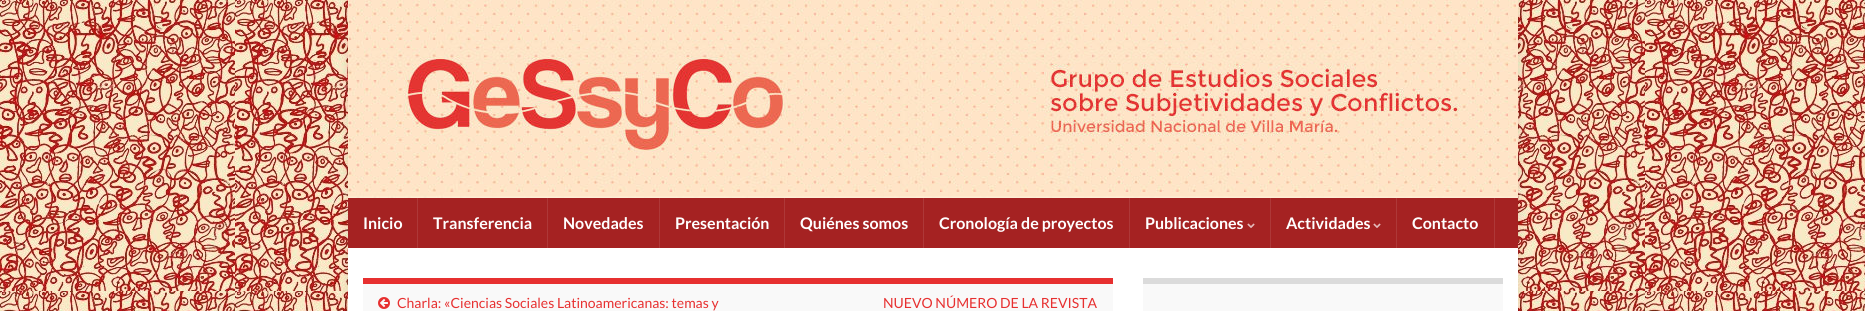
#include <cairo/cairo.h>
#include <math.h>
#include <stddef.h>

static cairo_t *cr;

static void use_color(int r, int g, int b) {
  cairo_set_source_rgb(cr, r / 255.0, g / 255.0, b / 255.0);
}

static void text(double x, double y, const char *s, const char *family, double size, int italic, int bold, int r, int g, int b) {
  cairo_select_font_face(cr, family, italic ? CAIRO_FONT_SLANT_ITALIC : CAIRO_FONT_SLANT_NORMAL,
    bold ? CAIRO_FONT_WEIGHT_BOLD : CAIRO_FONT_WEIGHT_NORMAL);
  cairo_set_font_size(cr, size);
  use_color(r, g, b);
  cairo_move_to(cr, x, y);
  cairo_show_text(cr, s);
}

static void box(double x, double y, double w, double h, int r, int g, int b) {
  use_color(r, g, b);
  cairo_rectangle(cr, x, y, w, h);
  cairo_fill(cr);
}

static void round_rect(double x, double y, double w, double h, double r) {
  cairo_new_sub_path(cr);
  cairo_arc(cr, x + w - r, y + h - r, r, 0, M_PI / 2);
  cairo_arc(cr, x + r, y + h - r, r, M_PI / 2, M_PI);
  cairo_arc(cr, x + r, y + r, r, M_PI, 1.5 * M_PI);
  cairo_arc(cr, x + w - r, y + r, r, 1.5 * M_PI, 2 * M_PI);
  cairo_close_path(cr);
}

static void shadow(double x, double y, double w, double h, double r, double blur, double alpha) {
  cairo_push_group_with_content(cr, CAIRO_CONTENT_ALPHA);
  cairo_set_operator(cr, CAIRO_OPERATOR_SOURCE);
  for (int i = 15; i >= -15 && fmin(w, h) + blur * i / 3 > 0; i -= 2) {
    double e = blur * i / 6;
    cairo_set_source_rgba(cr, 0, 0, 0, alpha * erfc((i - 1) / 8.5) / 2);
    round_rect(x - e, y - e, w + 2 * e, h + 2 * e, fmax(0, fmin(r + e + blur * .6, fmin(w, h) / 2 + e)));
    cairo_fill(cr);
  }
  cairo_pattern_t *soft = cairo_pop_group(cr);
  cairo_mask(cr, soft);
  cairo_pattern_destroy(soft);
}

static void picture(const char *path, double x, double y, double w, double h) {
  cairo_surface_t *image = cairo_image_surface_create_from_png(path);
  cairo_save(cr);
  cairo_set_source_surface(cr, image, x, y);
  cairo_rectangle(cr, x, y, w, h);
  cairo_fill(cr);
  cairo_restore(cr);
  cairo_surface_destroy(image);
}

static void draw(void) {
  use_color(255, 255, 255);
  cairo_paint(cr);
  picture("img_01.png", 0, 0, 1865, 311);
  use_color(0, 0, 0);
  shadow(348, 0, 1170, 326, 0, 5, 0.1);
  picture("img_02.png", 348, 0, 1170, 198);
  box(348, 198, 1170, 50, 165, 34, 34);
  box(417, 198, 1, 50, 174, 56, 56);
  box(547, 198, 1, 50, 174, 56, 56);
  box(659, 198, 1, 50, 174, 56, 56);
  box(784, 198, 1, 50, 174, 56, 56);
  box(923, 198, 1, 50, 174, 56, 56);
  box(1129, 198, 1, 50, 174, 56, 56);
  box(1270, 198, 1, 50, 174, 56, 56);
  picture("img_03.png", 1247, 223, 8, 5);
  box(1396, 198, 1, 50, 174, 56, 56);
  picture("img_03.png", 1373, 223, 8, 5);
  box(1494, 198, 1, 50, 174, 56, 56);
  box(348, 248, 1170, 63, 255, 255, 255);
  box(363, 284, 750, 27, 249, 249, 249);
  box(363, 278, 750, 6, 231, 48, 48);
  picture("img_04.png", 378, 297, 12, 12);
  box(1143, 284, 360, 27, 249, 249, 249);
  box(1143, 278, 360, 6, 219, 219, 219);
  text(363, 229, "Inicio", "Lato", 16, 0, 1, 255, 255, 255);
  text(433, 229, "Transferencia", "Lato", 16, 0, 1, 255, 255, 255);
  text(563, 229, "Novedades", "Lato", 16, 0, 1, 255, 255, 255);
  text(675, 229, "Presentación", "Lato", 16, 0, 1, 255, 255, 255);
  text(800, 229, "Quiénes somos", "Lato", 16, 0, 1, 255, 255, 255);
  text(939, 229, "Cronología de proyectos", "Lato", 16, 0, 1, 255, 255, 255);
  text(1145, 229, "Publicaciones", "Lato", 16, 0, 1, 255, 255, 255);
  text(1286, 229, "Actividades", "Lato", 16, 0, 1, 255, 255, 255);
  text(1412, 229, "Contacto", "Lato", 16, 0, 1, 255, 255, 255);
  text(397, 308, "Charla: «Ciencias Sociales Latinoamericanas: temas y", "Lato", 14, 0, 0, 231, 48, 48);
  text(883, 308, "NUEVO NÚMERO DE LA REVISTA", "Lato", 14, 0, 0, 231, 48, 48);
}

int main(void) {
  cairo_surface_t *surface = cairo_image_surface_create(CAIRO_FORMAT_RGB24, 1865, 311);
  cr = cairo_create(surface);
  cairo_font_options_t *options = cairo_font_options_create();
  cairo_font_options_set_hint_metrics(options, CAIRO_HINT_METRICS_OFF);
  cairo_font_options_set_hint_style(options, CAIRO_HINT_STYLE_NONE);
  cairo_set_font_options(cr, options);
  cairo_set_miter_limit(cr, 4);
  draw();
  cairo_surface_write_to_png(surface, "out.png");
  cairo_font_options_destroy(options);
  cairo_destroy(cr);
  cairo_surface_destroy(surface);
  return 0;
}
